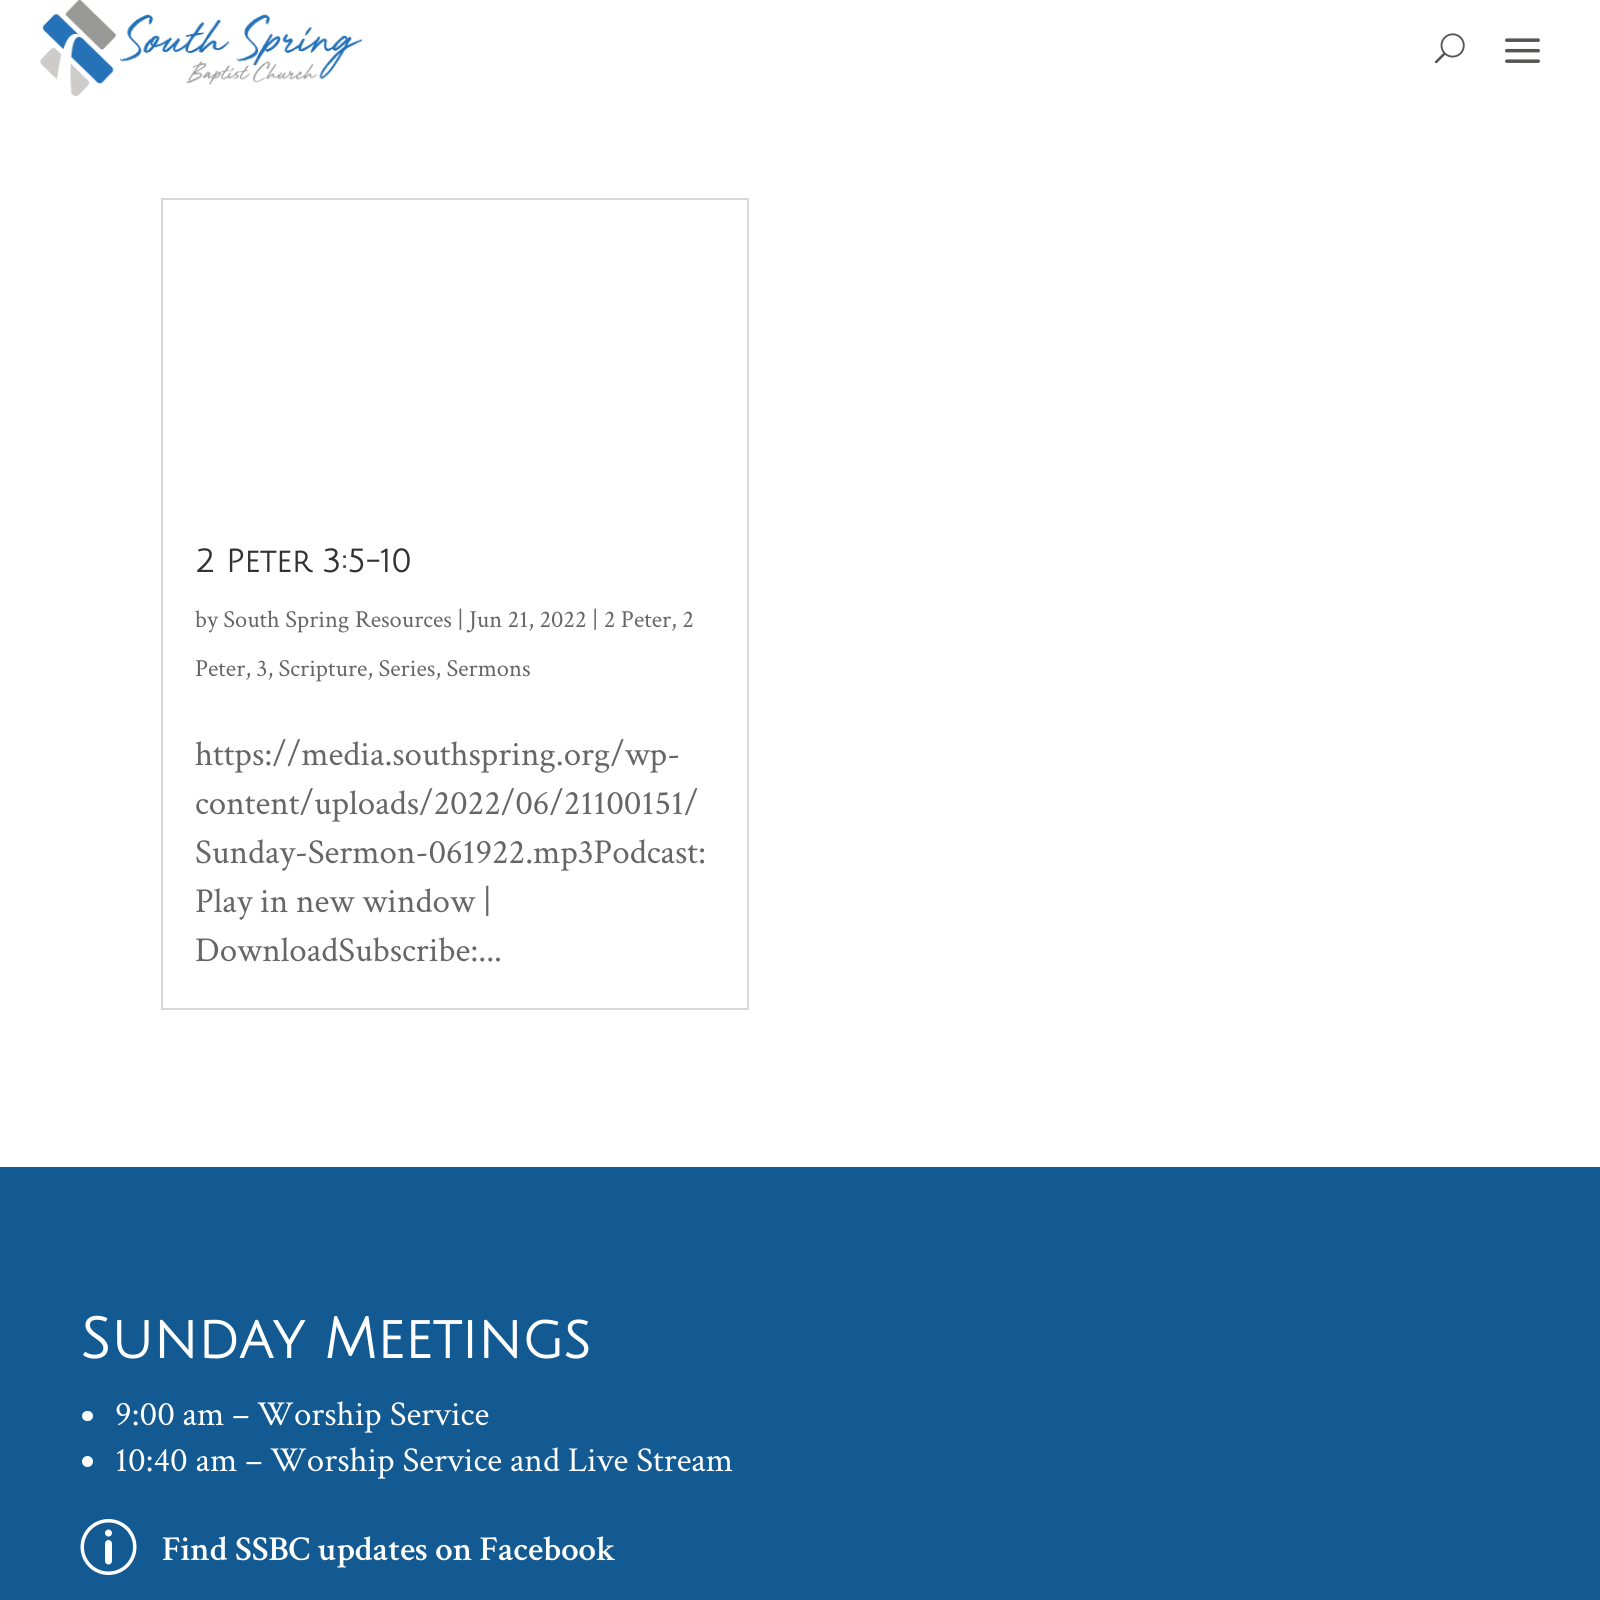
#include <cairo/cairo.h>
#include <math.h>
#include <stddef.h>

static cairo_t *cr;

static void use_color(int r, int g, int b) {
  cairo_set_source_rgb(cr, r / 255.0, g / 255.0, b / 255.0);
}

static void text(double x, double y, const char *s, const char *family, double size, int italic, int bold, int r, int g, int b) {
  cairo_select_font_face(cr, family, italic ? CAIRO_FONT_SLANT_ITALIC : CAIRO_FONT_SLANT_NORMAL,
    bold ? CAIRO_FONT_WEIGHT_BOLD : CAIRO_FONT_WEIGHT_NORMAL);
  cairo_set_font_size(cr, size);
  use_color(r, g, b);
  cairo_move_to(cr, x, y);
  cairo_show_text(cr, s);
}

static void box(double x, double y, double w, double h, int r, int g, int b) {
  use_color(r, g, b);
  cairo_rectangle(cr, x, y, w, h);
  cairo_fill(cr);
}

static void round_rect(double x, double y, double w, double h, double r) {
  cairo_new_sub_path(cr);
  cairo_arc(cr, x + w - r, y + h - r, r, 0, M_PI / 2);
  cairo_arc(cr, x + r, y + h - r, r, M_PI / 2, M_PI);
  cairo_arc(cr, x + r, y + r, r, M_PI, 1.5 * M_PI);
  cairo_arc(cr, x + w - r, y + r, r, 1.5 * M_PI, 2 * M_PI);
  cairo_close_path(cr);
}

static void picture(const char *path, double x, double y, double w, double h) {
  cairo_surface_t *image = cairo_image_surface_create_from_png(path);
  cairo_save(cr);
  cairo_set_source_surface(cr, image, x, y);
  cairo_rectangle(cr, x, y, w, h);
  cairo_fill(cr);
  cairo_restore(cr);
  cairo_surface_destroy(image);
}

static void draw(void) {
  use_color(255, 255, 255);
  cairo_paint(cr);
  picture("img_01.png", 40, 0, 323, 96);
  picture("img_02.png", 1434, 33, 31, 31);
  picture("img_03.png", 1505, 38, 35, 25);
  cairo_rectangle(cr, 162, 199, 586, 810);
  use_color(216, 216, 216);
  cairo_stroke(cr);
  box(0, 1167, 1600, 433, 18, 90, 145);
  use_color(255, 255, 255);
  round_rect(82, 1411, 11, 10, 5);
  cairo_fill(cr);
  cairo_arc(cr, 87.5, 1461.5, 5.5, 0, 2 * M_PI);
  cairo_fill(cr);
  picture("img_04.png", 80, 1519, 57, 56);
  text(195, 572, "2 Peter 3:5-10", "Julius Sans One", 31.5, 0, 1, 51, 51, 51);
  text(195, 627, "by South Spring Resources | Jun 21, 2022 | 2 Peter, 2", "Crimson Text", 24.5, 0, 0, 102, 102, 102);
  text(195, 676, "Peter, 3, Scripture, Series, Sermons", "Crimson Text", 24.5, 0, 0, 102, 102, 102);
  text(195, 765, "https://media.southspring.org/wp-", "Crimson Text", 35, 0, 0, 102, 102, 102);
  text(195, 814, "content/uploads/2022/06/21100151/", "Crimson Text", 35, 0, 0, 102, 102, 102);
  text(195, 863, "Sunday-Sermon-061922.mp3Podcast:", "Crimson Text", 35, 0, 0, 102, 102, 102);
  text(195, 912, "Play in new window |", "Crimson Text", 35, 0, 0, 102, 102, 102);
  text(195, 961, "DownloadSubscribe:...", "Crimson Text", 35, 0, 0, 102, 102, 102);
  text(80, 1358, "Sunday Meetings", "Julius Sans One", 56, 0, 1, 255, 255, 255);
  text(115, 1425, "9:00 am – Worship Service", "Crimson Text", 35, 0, 0, 255, 255, 255);
  text(115, 1471, "10:40 am – Worship Service and Live Stream", "Crimson Text", 35, 0, 0, 255, 255, 255);
  text(162, 1560, "Find SSBC updates on Facebook", "Crimson Text SemiBold", 35, 0, 0, 255, 255, 255);
}

int main(void) {
  cairo_surface_t *surface = cairo_image_surface_create(CAIRO_FORMAT_RGB24, 1600, 1600);
  cr = cairo_create(surface);
  cairo_font_options_t *options = cairo_font_options_create();
  cairo_font_options_set_hint_metrics(options, CAIRO_HINT_METRICS_OFF);
  cairo_font_options_set_hint_style(options, CAIRO_HINT_STYLE_NONE);
  cairo_set_font_options(cr, options);
  cairo_set_miter_limit(cr, 4);
  draw();
  cairo_surface_write_to_png(surface, "out.png");
  cairo_font_options_destroy(options);
  cairo_destroy(cr);
  cairo_surface_destroy(surface);
  return 0;
}
